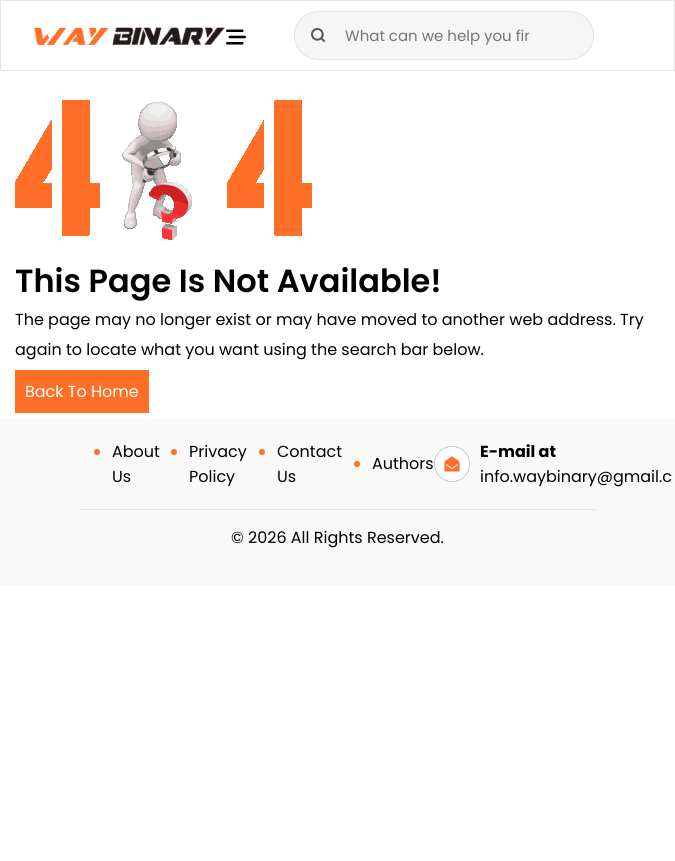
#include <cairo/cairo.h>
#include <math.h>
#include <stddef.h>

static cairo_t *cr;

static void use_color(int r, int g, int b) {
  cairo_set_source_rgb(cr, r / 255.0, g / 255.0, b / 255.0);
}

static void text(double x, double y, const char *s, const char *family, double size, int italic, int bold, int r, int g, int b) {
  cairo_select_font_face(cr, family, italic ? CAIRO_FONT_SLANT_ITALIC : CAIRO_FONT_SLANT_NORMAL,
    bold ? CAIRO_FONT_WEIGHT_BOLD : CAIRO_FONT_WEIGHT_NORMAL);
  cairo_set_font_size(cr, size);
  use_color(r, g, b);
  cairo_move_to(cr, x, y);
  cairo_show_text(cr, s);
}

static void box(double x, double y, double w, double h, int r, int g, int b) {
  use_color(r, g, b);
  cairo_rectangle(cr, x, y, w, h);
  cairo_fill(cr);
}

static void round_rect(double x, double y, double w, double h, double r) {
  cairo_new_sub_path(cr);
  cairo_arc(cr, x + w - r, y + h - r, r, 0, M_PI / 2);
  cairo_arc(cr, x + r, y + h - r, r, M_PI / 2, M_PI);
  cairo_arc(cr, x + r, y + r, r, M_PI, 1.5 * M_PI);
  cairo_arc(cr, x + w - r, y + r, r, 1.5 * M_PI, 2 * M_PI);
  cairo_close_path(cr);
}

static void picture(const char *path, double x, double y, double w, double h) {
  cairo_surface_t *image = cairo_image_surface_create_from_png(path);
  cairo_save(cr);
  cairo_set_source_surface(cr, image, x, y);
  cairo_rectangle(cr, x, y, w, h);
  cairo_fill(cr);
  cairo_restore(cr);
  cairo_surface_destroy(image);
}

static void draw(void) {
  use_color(255, 255, 255);
  cairo_paint(cr);
  cairo_rectangle(cr, 0.5, 0.5, 674, 70);
  use_color(228, 228, 228);
  cairo_set_line_width(cr, 1);
  cairo_stroke(cr);
  picture("img_01.png", 33, 27, 193, 18);
  picture("img_02.png", 226, 29, 20, 16);
  use_color(246, 246, 246);
  round_rect(294, 11, 300, 49, 24.5);
  cairo_fill(cr);
  round_rect(294.5, 11.5, 299, 48, 24);
  cairo_set_source_rgba(cr, 0.8, 0.8, 0.8, 0.44);
  cairo_stroke(cr);
  picture("img_03.png", 311, 28, 14, 14);
  picture("img_04.png", 15, 100, 297, 140);
  box(15, 370, 134, 43, 255, 111, 40);
  box(0, 419, 675, 166, 249, 249, 249);
  use_color(255, 111, 40);
  cairo_arc(cr, 97, 452, 3, 0, 2 * M_PI);
  cairo_fill(cr);
  cairo_arc(cr, 174, 452, 3, 0, 2 * M_PI);
  cairo_fill(cr);
  cairo_arc(cr, 262, 452, 3, 0, 2 * M_PI);
  cairo_fill(cr);
  cairo_arc(cr, 357, 464, 3, 0, 2 * M_PI);
  cairo_fill(cr);
  cairo_arc(cr, 452, 464, 17.5, 0, 2 * M_PI);
  use_color(199, 199, 199);
  cairo_stroke(cr);
  picture("img_05.png", 435, 447, 34, 34);
  box(80, 509, 516, 1, 228, 228, 228);
  cairo_save(cr);
  cairo_rectangle(cr, 345, 24, 184, 23);
  cairo_clip(cr);
  text(345, 41, "What can we help you fin", "Poppins", 15, 0, 0, 117, 117, 117);
  cairo_restore(cr);
  text(15, 292, "This Page Is Not Available!", "Poppins SemiBold", 32, 0, 0, 0, 0, 0);
  text(15, 325, "The page may no longer exist or may have moved to another web address. Try", "Poppins", 16, 0, 0, 0, 0, 0);
  text(15, 355, "again to locate what you want using the search bar below.", "Poppins", 16, 0, 0, 0, 0, 0);
  text(25, 397, "Back To Home", "Poppins", 16, 0, 0, 255, 255, 255);
  text(112, 457, "About", "Poppins", 16, 0, 0, 0, 0, 0);
  text(112, 482, "Us", "Poppins", 16, 0, 0, 0, 0, 0);
  text(189, 457, "Privacy", "Poppins", 16, 0, 0, 0, 0, 0);
  text(189, 482, "Policy", "Poppins", 16, 0, 0, 0, 0, 0);
  text(277, 457, "Contact", "Poppins", 16, 0, 0, 0, 0, 0);
  text(277, 482, "Us", "Poppins", 16, 0, 0, 0, 0, 0);
  text(372, 469, "Authors", "Poppins", 16, 0, 0, 0, 0, 0);
  text(480, 457, "E-mail at", "Poppins", 16, 0, 1, 0, 0, 0);
  text(480, 482, "info.waybinary@gmail.c", "Poppins", 16, 0, 0, 0, 0, 0);
  text(231, 543, "© 2026 All Rights Reserved.", "Poppins", 16, 0, 0, 0, 0, 0);
}

int main(void) {
  cairo_surface_t *surface = cairo_image_surface_create(CAIRO_FORMAT_RGB24, 675, 861);
  cr = cairo_create(surface);
  cairo_font_options_t *options = cairo_font_options_create();
  cairo_font_options_set_hint_metrics(options, CAIRO_HINT_METRICS_OFF);
  cairo_font_options_set_hint_style(options, CAIRO_HINT_STYLE_NONE);
  cairo_set_font_options(cr, options);
  cairo_set_miter_limit(cr, 4);
  draw();
  cairo_surface_write_to_png(surface, "out.png");
  cairo_font_options_destroy(options);
  cairo_destroy(cr);
  cairo_surface_destroy(surface);
  return 0;
}
